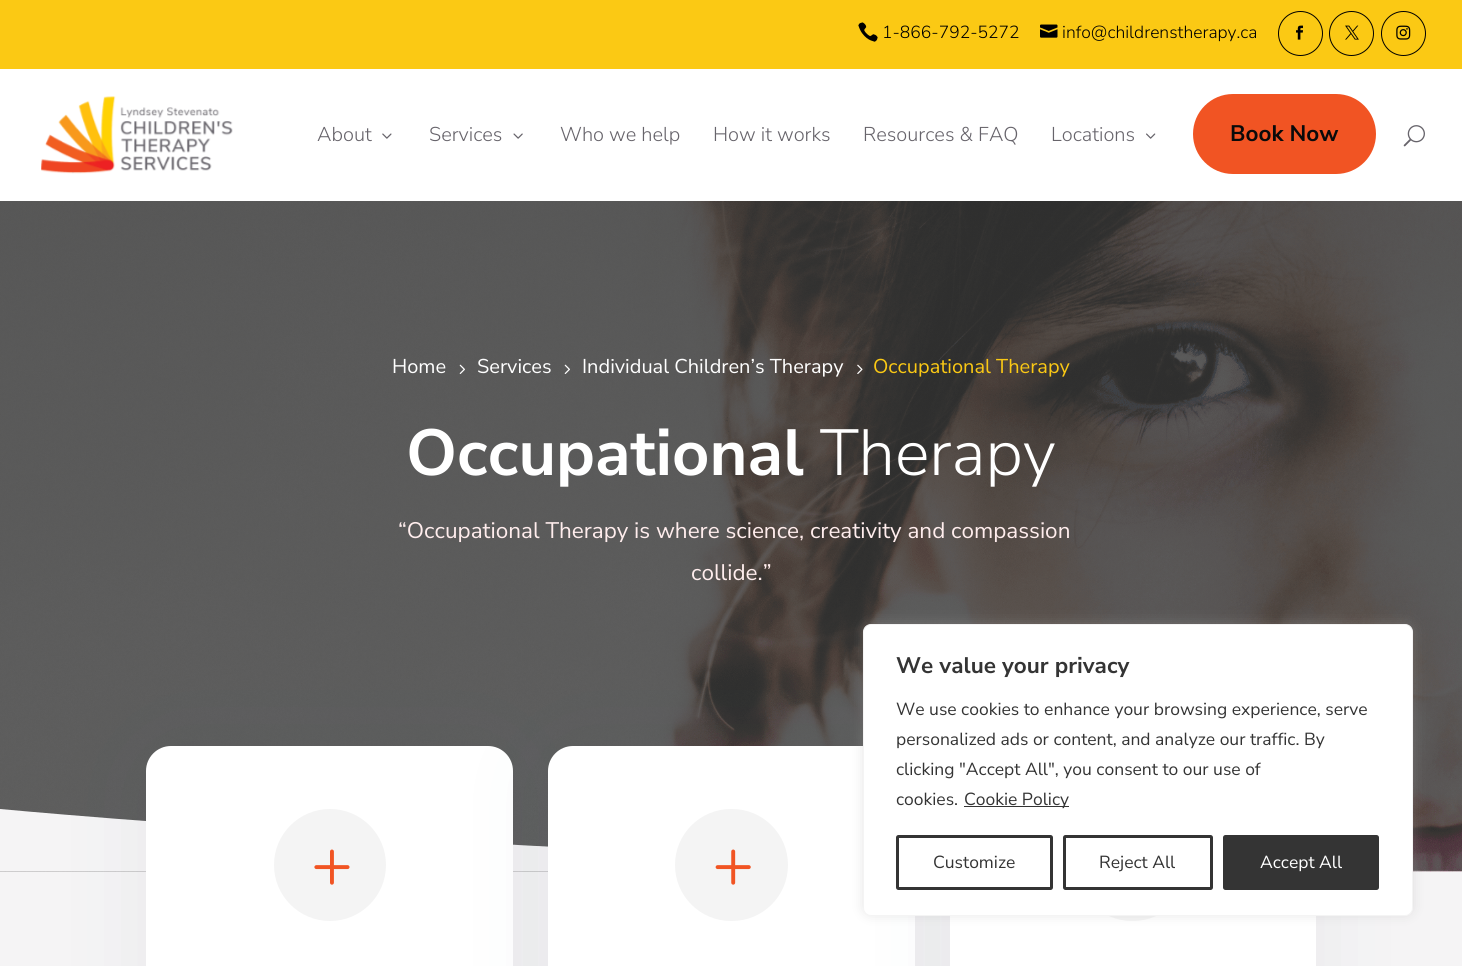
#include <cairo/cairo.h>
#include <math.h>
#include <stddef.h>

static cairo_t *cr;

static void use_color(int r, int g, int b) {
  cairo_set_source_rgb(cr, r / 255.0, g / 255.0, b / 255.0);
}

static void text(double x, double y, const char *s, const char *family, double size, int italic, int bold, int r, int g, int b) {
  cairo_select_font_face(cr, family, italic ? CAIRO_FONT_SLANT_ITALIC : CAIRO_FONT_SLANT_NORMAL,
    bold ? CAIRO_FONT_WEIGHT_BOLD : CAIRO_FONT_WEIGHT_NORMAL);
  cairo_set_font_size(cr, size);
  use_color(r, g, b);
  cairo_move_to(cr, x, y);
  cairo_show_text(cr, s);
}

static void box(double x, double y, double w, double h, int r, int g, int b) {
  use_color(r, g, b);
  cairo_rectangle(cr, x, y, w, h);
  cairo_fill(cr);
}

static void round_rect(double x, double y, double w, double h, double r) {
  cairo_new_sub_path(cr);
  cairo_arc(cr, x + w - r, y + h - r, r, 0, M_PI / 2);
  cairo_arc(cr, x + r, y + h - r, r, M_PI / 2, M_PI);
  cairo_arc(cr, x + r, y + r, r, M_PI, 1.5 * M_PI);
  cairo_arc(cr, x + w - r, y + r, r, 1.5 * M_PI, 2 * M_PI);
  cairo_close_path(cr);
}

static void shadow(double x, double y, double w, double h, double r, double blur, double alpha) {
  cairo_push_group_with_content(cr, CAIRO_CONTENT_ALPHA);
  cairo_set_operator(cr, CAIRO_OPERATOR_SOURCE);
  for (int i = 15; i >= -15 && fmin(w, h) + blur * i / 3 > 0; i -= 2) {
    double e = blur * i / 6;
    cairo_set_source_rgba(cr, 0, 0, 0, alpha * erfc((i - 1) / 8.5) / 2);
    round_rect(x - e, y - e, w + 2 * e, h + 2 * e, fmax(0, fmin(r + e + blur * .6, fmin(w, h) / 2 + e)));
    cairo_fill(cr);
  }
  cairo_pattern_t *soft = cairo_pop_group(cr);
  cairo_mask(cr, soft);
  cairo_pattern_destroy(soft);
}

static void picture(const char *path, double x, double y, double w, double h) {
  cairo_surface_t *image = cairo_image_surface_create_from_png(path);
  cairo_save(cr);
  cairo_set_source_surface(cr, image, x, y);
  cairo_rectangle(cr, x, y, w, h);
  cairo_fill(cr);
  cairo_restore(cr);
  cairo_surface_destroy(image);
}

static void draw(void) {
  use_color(245, 244, 245);
  cairo_paint(cr);
  box(0, 0, 1462, 69, 251, 201, 20);
  picture("img_01.png", 858, 22, 20, 20);
  picture("img_02.png", 1040, 24, 18, 14);
  cairo_arc(cr, 1300.5, 33.5, 22, 0, 2 * M_PI);
  use_color(0, 0, 0);
  cairo_set_line_width(cr, 1);
  cairo_stroke(cr);
  picture("img_03.png", 1296, 25, 7, 15);
  cairo_arc(cr, 1351.5, 33.5, 22, 0, 2 * M_PI);
  cairo_stroke(cr);
  picture("img_04.png", 1345, 25, 14, 15);
  cairo_arc(cr, 1403.5, 33.5, 22, 0, 2 * M_PI);
  cairo_stroke(cr);
  picture("img_05.png", 1396, 25, 15, 15);
  box(0, 69, 1462, 132, 255, 255, 255);
  picture("img_06.png", 41, 96, 192, 78);
  picture("img_07.png", 382, 133, 10, 6);
  picture("img_08.png", 513, 133, 10, 6);
  picture("img_09.png", 1146, 133, 10, 6);
  use_color(241, 84, 35);
  round_rect(1193, 94, 183, 80, 40);
  cairo_fill(cr);
  picture("img_10.png", 1403, 125, 22, 22);
  picture("img_11.png", 0, 201, 1462, 671);
  picture("img_12.png", 459, 364, 6, 10);
  picture("img_13.png", 564, 364, 6, 10);
  picture("img_14.png", 857, 364, 6, 10);
  use_color(245, 244, 245);
  cairo_new_path(cr);
  cairo_move_to(cr, 0, 871);
  cairo_line_to(cr, 1462, 871);
  cairo_curve_to(cr, 655, 871, 0, 809, 0, 809);
  cairo_close_path(cr);
  cairo_fill(cr);
  use_color(53, 75, 96);
  shadow(146, 749, 367, 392, 25, 50, 0.07);
  use_color(255, 255, 255);
  round_rect(146, 746, 367, 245, 25);
  cairo_fill(cr);
  use_color(244, 244, 244);
  cairo_arc(cr, 330, 865, 56, 0, 2 * M_PI);
  cairo_fill(cr);
  picture("img_15.png", 314, 849, 36, 36);
  use_color(53, 75, 96);
  shadow(548, 749, 367, 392, 25, 50, 0.07);
  use_color(255, 255, 255);
  round_rect(548, 746, 367, 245, 25);
  cairo_fill(cr);
  use_color(244, 244, 244);
  round_rect(675, 809, 113, 112, 56);
  cairo_fill(cr);
  picture("img_16.png", 715, 849, 36, 36);
  use_color(53, 75, 96);
  shadow(950, 749, 366, 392, 25, 50, 0.07);
  box(950, 916, 366, 50, 255, 255, 255);
  use_color(244, 244, 244);
  round_rect(1076, 809, 113, 112, 56);
  cairo_fill(cr);
  use_color(172, 171, 171);
  shadow(863, 623, 550, 292, 8, 6, 0.3);
  use_color(255, 255, 255);
  round_rect(863.5, 624.5, 549, 291, 7.5);
  cairo_fill_preserve(cr);
  use_color(244, 244, 244);
  cairo_stroke(cr);
  box(964, 806, 105, 1, 52, 52, 52);
  round_rect(897.5, 836.5, 154, 52, 1);
  cairo_set_line_width(cr, 3);
  cairo_stroke(cr);
  round_rect(1064.5, 836.5, 147, 52, 1);
  cairo_stroke(cr);
  round_rect(1224.5, 836.5, 153, 52, 1);
  cairo_fill_preserve(cr);
  cairo_stroke(cr);
  text(882, 38, "1-866-792-5272", "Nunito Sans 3 ExtraLight", 17.5, 0, 0, 0, 0, 0);
  text(1062, 38, "info@childrenstherapy.ca", "Nunito Sans 3 ExtraLight", 17.5, 0, 0, 0, 0, 0);
  text(317, 141, "About", "Nunito Sans 3 ExtraLight", 20, 0, 0, 103, 100, 107);
  text(429, 141, "Services", "Nunito Sans 3 ExtraLight", 20, 0, 0, 103, 100, 107);
  text(560, 141, "Who we help", "Nunito Sans 3 ExtraLight", 20, 0, 0, 103, 100, 107);
  text(713, 141, "How it works", "Nunito Sans 3 ExtraLight", 20, 0, 0, 103, 100, 107);
  text(863, 141, "Resources & FAQ", "Nunito Sans 3 ExtraLight", 20, 0, 0, 103, 100, 107);
  text(1051, 141, "Locations", "Nunito Sans 3 ExtraLight", 20, 0, 0, 103, 100, 107);
  text(1230, 141, "Book Now", "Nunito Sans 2 ExtraLight", 22.5, 0, 0, 10, 10, 10);
  text(392, 373, "Home", "Nunito Sans ExtraLight", 20, 0, 0, 255, 255, 255);
  text(477, 373, "Services", "Nunito Sans ExtraLight", 20, 0, 0, 255, 255, 255);
  text(582, 373, "Individual Children’s Therapy", "Nunito Sans ExtraLight", 20, 0, 0, 255, 255, 255);
  text(873, 373, "Occupational Therapy", "Nunito Sans ExtraLight", 20, 0, 0, 251, 201, 20);
  text(406, 475, "Occupational", "Nunito Sans 2 ExtraLight", 65, 0, 0, 255, 255, 255);
  text(820, 475, "Therapy", "Nunito Sans 3 ExtraLight", 65, 0, 0, 255, 255, 255);
  text(398, 538, "“Occupational Therapy is where science, creativity and compassion", "Nunito Sans ExtraLight", 22.5, 0, 0, 255, 237, 237);
  text(691, 580, "collide.”", "Nunito Sans ExtraLight", 22.5, 0, 0, 255, 237, 237);
  text(896, 673, "We value your privacy", "Nunito Sans 2 ExtraLight", 22.5, 0, 0, 52, 52, 52);
  text(896, 715, "We use cookies to enhance your browsing experience, serve", "Nunito Sans ExtraLight", 17.5, 0, 0, 52, 52, 52);
  text(896, 745, "personalized ads or content, and analyze our traffic. By", "Nunito Sans ExtraLight", 17.5, 0, 0, 52, 52, 52);
  text(896, 775, "clicking \"Accept All\", you consent to our use of", "Nunito Sans ExtraLight", 17.5, 0, 0, 52, 52, 52);
  text(896, 805, "cookies.", "Nunito Sans ExtraLight", 17.5, 0, 0, 52, 52, 52);
  text(964, 805, "Cookie Policy", "Nunito Sans ExtraLight", 17.5, 0, 0, 52, 52, 52);
  text(933, 868, "Customize", "Nunito Sans ExtraLight", 17.5, 0, 0, 52, 52, 52);
  text(1099, 868, "Reject All", "Nunito Sans ExtraLight", 17.5, 0, 0, 52, 52, 52);
  text(1260, 868, "Accept All", "Nunito Sans ExtraLight", 17.5, 0, 0, 255, 255, 255);
}

int main(void) {
  cairo_surface_t *surface = cairo_image_surface_create(CAIRO_FORMAT_RGB24, 1462, 966);
  cr = cairo_create(surface);
  cairo_font_options_t *options = cairo_font_options_create();
  cairo_font_options_set_hint_metrics(options, CAIRO_HINT_METRICS_OFF);
  cairo_font_options_set_hint_style(options, CAIRO_HINT_STYLE_NONE);
  cairo_set_font_options(cr, options);
  cairo_set_miter_limit(cr, 4);
  draw();
  cairo_surface_write_to_png(surface, "out.png");
  cairo_font_options_destroy(options);
  cairo_destroy(cr);
  cairo_surface_destroy(surface);
  return 0;
}
